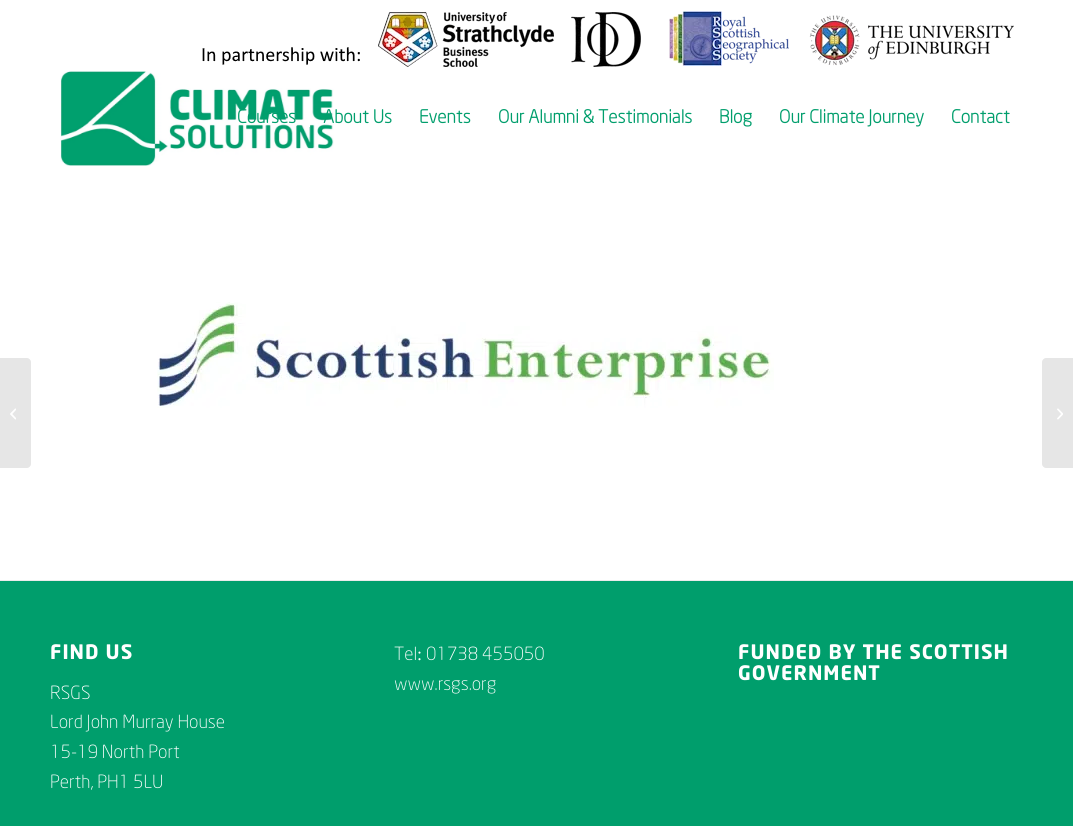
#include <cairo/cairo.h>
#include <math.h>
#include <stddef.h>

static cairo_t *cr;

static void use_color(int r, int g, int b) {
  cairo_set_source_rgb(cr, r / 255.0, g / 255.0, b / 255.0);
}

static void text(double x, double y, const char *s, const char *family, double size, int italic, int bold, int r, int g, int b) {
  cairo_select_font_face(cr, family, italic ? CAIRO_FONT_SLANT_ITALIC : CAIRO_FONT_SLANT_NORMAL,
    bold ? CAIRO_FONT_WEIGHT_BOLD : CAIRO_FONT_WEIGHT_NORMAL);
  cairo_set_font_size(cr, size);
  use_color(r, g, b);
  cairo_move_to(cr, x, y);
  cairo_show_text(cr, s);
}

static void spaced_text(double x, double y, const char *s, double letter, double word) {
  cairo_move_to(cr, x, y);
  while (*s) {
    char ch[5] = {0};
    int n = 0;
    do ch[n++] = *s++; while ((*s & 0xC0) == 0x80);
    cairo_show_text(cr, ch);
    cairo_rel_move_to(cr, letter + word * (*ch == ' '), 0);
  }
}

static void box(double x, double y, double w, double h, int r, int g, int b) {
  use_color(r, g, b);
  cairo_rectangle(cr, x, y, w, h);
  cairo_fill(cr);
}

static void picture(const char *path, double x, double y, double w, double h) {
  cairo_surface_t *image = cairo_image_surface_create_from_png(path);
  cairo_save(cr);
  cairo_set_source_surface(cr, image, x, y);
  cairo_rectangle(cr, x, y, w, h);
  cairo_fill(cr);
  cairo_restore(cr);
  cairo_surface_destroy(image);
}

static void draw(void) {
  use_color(255, 255, 255);
  cairo_paint(cr);
  picture("img_01.png", 202, 11, 812, 56);
  picture("img_02.png", 60, 71, 274, 95);
  box(309, 124, 1, 3, 255, 255, 255);
  use_color(230, 230, 230);
  cairo_new_path(cr);
  cairo_move_to(cr, 0, 358);
  cairo_line_to(cr, 27, 358);
  cairo_curve_to(cr, 29, 358, 31, 360, 31, 362);
  cairo_line_to(cr, 31, 464);
  cairo_curve_to(cr, 31, 466, 29, 468, 27, 468);
  cairo_line_to(cr, 0, 468);
  cairo_close_path(cr);
  cairo_fill(cr);
  picture("img_03.png", 10, 408, 6, 12);
  cairo_new_path(cr);
  cairo_move_to(cr, 1046, 358);
  cairo_line_to(cr, 1073, 358);
  cairo_line_to(cr, 1073, 468);
  cairo_line_to(cr, 1046, 468);
  cairo_curve_to(cr, 1044, 468, 1042, 466, 1042, 464);
  cairo_line_to(cr, 1042, 362);
  cairo_curve_to(cr, 1042, 360, 1044, 358, 1046, 358);
  cairo_close_path(cr);
  cairo_fill(cr);
  picture("img_04.png", 1057, 408, 6, 12);
  picture("img_05.png", 157, 302, 617, 106);
  box(0, 581, 1073, 245, 0, 158, 108);
  box(0, 580, 1073, 1, 235, 235, 235);
  text(237, 123, "Courses", "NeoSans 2", 18, 0, 1, 0, 158, 108);
  text(323, 123, "About Us", "NeoSans 2", 18, 0, 1, 0, 158, 108);
  text(419, 123, "Events", "NeoSans 2", 18, 0, 1, 0, 158, 108);
  text(498, 123, "Our Alumni & Testimonials", "NeoSans 2", 18, 0, 1, 0, 158, 108);
  text(719, 123, "Blog", "NeoSans 2", 18, 0, 1, 0, 158, 108);
  text(779, 123, "Our Climate Journey", "NeoSans 2", 18, 0, 1, 0, 158, 108);
  text(951, 123, "Contact", "NeoSans 2", 18, 0, 1, 0, 158, 108);
  cairo_select_font_face(cr, "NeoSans", CAIRO_FONT_SLANT_NORMAL, CAIRO_FONT_WEIGHT_BOLD);
  cairo_set_font_size(cr, 19.75);
  use_color(255, 255, 255);
  spaced_text(50, 659, "FIND US", 1, 0);
  text(50, 699, "RSGS", "NeoSans Light", 18, 0, 0, 255, 255, 255);
  text(50, 728, "Lord John Murray House", "NeoSans Light", 18, 0, 0, 255, 255, 255);
  text(50, 758, "15-19 North Port", "NeoSans Light", 18, 0, 0, 255, 255, 255);
  text(50, 788, "Perth, PH1 5LU", "NeoSans Light", 18, 0, 0, 255, 255, 255);
  text(394, 660, "Tel", "NeoSans Light", 18, 0, 0, 255, 255, 255);
  text(417, 660, ":", "Liberation Serif", 18, 0, 0, 255, 255, 255);
  text(426, 660, "01738 455050", "NeoSans Light", 18, 0, 0, 255, 255, 255);
  text(394, 690, "www.rsgs.org", "NeoSans Light", 18, 0, 0, 255, 255, 255);
  cairo_select_font_face(cr, "NeoSans", CAIRO_FONT_SLANT_NORMAL, CAIRO_FONT_WEIGHT_BOLD);
  cairo_set_font_size(cr, 19.75);
  spaced_text(738, 659, "FUNDED BY THE SCOTTISH", 1, 0);
  spaced_text(738, 680, "GOVERNMENT", 1, 0);
}

int main(void) {
  cairo_surface_t *surface = cairo_image_surface_create(CAIRO_FORMAT_RGB24, 1073, 826);
  cr = cairo_create(surface);
  cairo_font_options_t *options = cairo_font_options_create();
  cairo_font_options_set_hint_metrics(options, CAIRO_HINT_METRICS_OFF);
  cairo_font_options_set_hint_style(options, CAIRO_HINT_STYLE_NONE);
  cairo_set_font_options(cr, options);
  cairo_set_miter_limit(cr, 4);
  draw();
  cairo_surface_write_to_png(surface, "out.png");
  cairo_font_options_destroy(options);
  cairo_destroy(cr);
  cairo_surface_destroy(surface);
  return 0;
}
